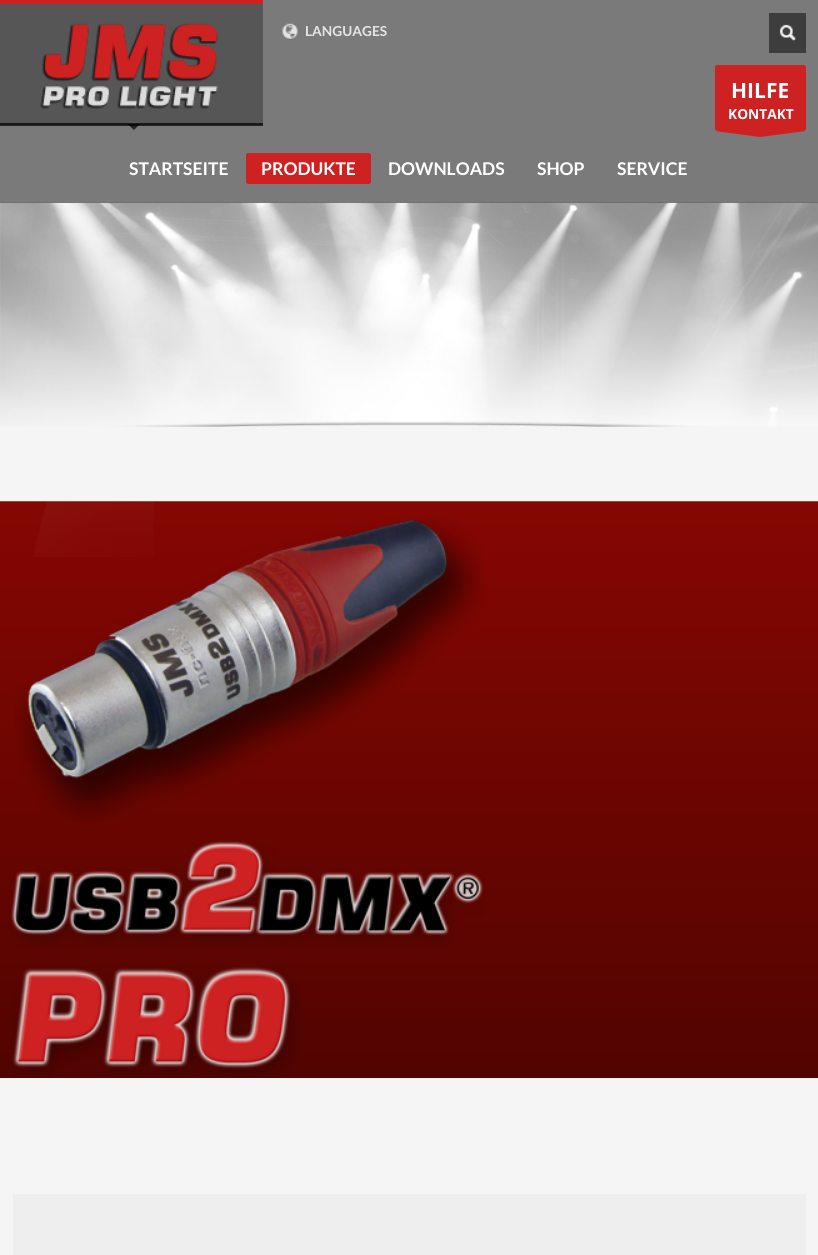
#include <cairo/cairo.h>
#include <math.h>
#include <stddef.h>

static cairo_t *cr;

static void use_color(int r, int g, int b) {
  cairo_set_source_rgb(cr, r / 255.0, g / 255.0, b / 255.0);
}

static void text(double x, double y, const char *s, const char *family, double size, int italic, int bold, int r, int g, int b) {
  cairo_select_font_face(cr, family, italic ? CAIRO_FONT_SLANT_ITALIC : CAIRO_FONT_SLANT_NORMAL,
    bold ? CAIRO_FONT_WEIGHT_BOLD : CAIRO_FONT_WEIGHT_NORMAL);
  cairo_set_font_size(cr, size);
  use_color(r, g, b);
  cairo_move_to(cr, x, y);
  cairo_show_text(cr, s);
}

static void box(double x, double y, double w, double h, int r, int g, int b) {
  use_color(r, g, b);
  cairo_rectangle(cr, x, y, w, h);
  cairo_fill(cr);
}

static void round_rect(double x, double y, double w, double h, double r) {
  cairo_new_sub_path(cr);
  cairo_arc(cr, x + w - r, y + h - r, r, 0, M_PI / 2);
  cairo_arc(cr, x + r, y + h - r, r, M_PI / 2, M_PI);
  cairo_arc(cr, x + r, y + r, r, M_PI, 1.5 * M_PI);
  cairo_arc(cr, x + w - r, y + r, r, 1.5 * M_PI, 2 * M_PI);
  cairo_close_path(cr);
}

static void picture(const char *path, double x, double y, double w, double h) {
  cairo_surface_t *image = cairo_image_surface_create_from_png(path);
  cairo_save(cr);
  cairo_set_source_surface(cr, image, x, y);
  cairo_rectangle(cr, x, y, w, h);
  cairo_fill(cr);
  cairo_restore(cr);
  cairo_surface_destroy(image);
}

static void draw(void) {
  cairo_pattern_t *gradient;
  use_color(245, 245, 245);
  cairo_paint(cr);
  gradient = cairo_pattern_create_linear(409, 202, 409, 1078);
  cairo_pattern_add_color_stop_rgba(gradient, 0, 0.635, 0.031, 0.008, 1);
  cairo_pattern_add_color_stop_rgba(gradient, 1, 0.318, 0.016, 0.004, 1);
  cairo_set_source(cr, gradient);
  cairo_pattern_destroy(gradient);
  cairo_rectangle(cr, 0, 501, 818, 577);
  cairo_fill(cr);
  picture("img_08.png", 34, 501, 120, 56);
  picture("img_04.png", 0, 202, 818, 300);
  cairo_set_source_rgba(cr, 0, 0, 0, 0.5);
  cairo_rectangle(cr, 0, 0, 818, 203);
  cairo_fill(cr);
  box(0, 4, 263, 121, 86, 86, 86);
  box(0, 0, 263, 4, 205, 33, 34);
  cairo_set_source_rgba(cr, 0, 0, 0, 0.7);
  cairo_rectangle(cr, 0, 123, 263, 3);
  cairo_fill(cr);
  picture("img_01.png", 40, 23, 178, 86);
  cairo_new_path(cr);
  cairo_move_to(cr, 127.5, 124);
  cairo_line_to(cr, 140, 124);
  cairo_line_to(cr, 134, 130);
  cairo_close_path(cr);
  cairo_fill(cr);
  picture("img_02.png", 282, 23, 16, 17);
  box(769, 13, 37, 40, 61, 61, 61);
  picture("img_03.png", 779, 24, 18, 17);
  use_color(205, 33, 34);
  round_rect(715, 65, 91, 66, 2.5);
  cairo_fill(cr);
  cairo_set_fill_rule(cr, CAIRO_FILL_RULE_EVEN_ODD);
  cairo_new_path(cr);
  cairo_move_to(cr, 806, 131);
  cairo_line_to(cr, 760, 137);
  cairo_line_to(cr, 715, 131);
  cairo_close_path(cr);
  cairo_fill(cr);
  round_rect(246, 153, 125, 31, 2.5);
  cairo_fill(cr);
  picture("img_05.png", 14, 516, 471, 307);
  picture("img_06.png", 9, 841, 476, 107);
  picture("img_07.png", 12, 967, 290, 110);
  box(13, 1194, 793, 61, 238, 238, 238);
  text(305, 36, "LANGUAGES", "Lato", 13.75, 0, 1, 229, 229, 229);
  text(731, 98, "HILFE", "Open Sans", 21, 0, 1, 255, 255, 255);
  text(728, 119, "KONTAKT", "Open Sans", 13.75, 0, 1, 255, 255, 255);
  text(129, 175, "STARTSEITE", "Lato", 17.5, 0, 1, 255, 255, 255);
  text(261, 175, "PRODUKTE", "Lato", 17.5, 0, 1, 255, 255, 255);
  text(388, 175, "DOWNLOADS", "Lato", 17.5, 0, 1, 255, 255, 255);
  text(537, 175, "SHOP", "Lato", 17.5, 0, 1, 255, 255, 255);
  text(617, 175, "SERVICE", "Lato", 17.5, 0, 1, 255, 255, 255);
}

int main(void) {
  cairo_surface_t *surface = cairo_image_surface_create(CAIRO_FORMAT_RGB24, 818, 1255);
  cr = cairo_create(surface);
  cairo_font_options_t *options = cairo_font_options_create();
  cairo_font_options_set_hint_metrics(options, CAIRO_HINT_METRICS_OFF);
  cairo_font_options_set_hint_style(options, CAIRO_HINT_STYLE_NONE);
  cairo_set_font_options(cr, options);
  cairo_set_miter_limit(cr, 4);
  draw();
  cairo_surface_write_to_png(surface, "out.png");
  cairo_font_options_destroy(options);
  cairo_destroy(cr);
  cairo_surface_destroy(surface);
  return 0;
}
